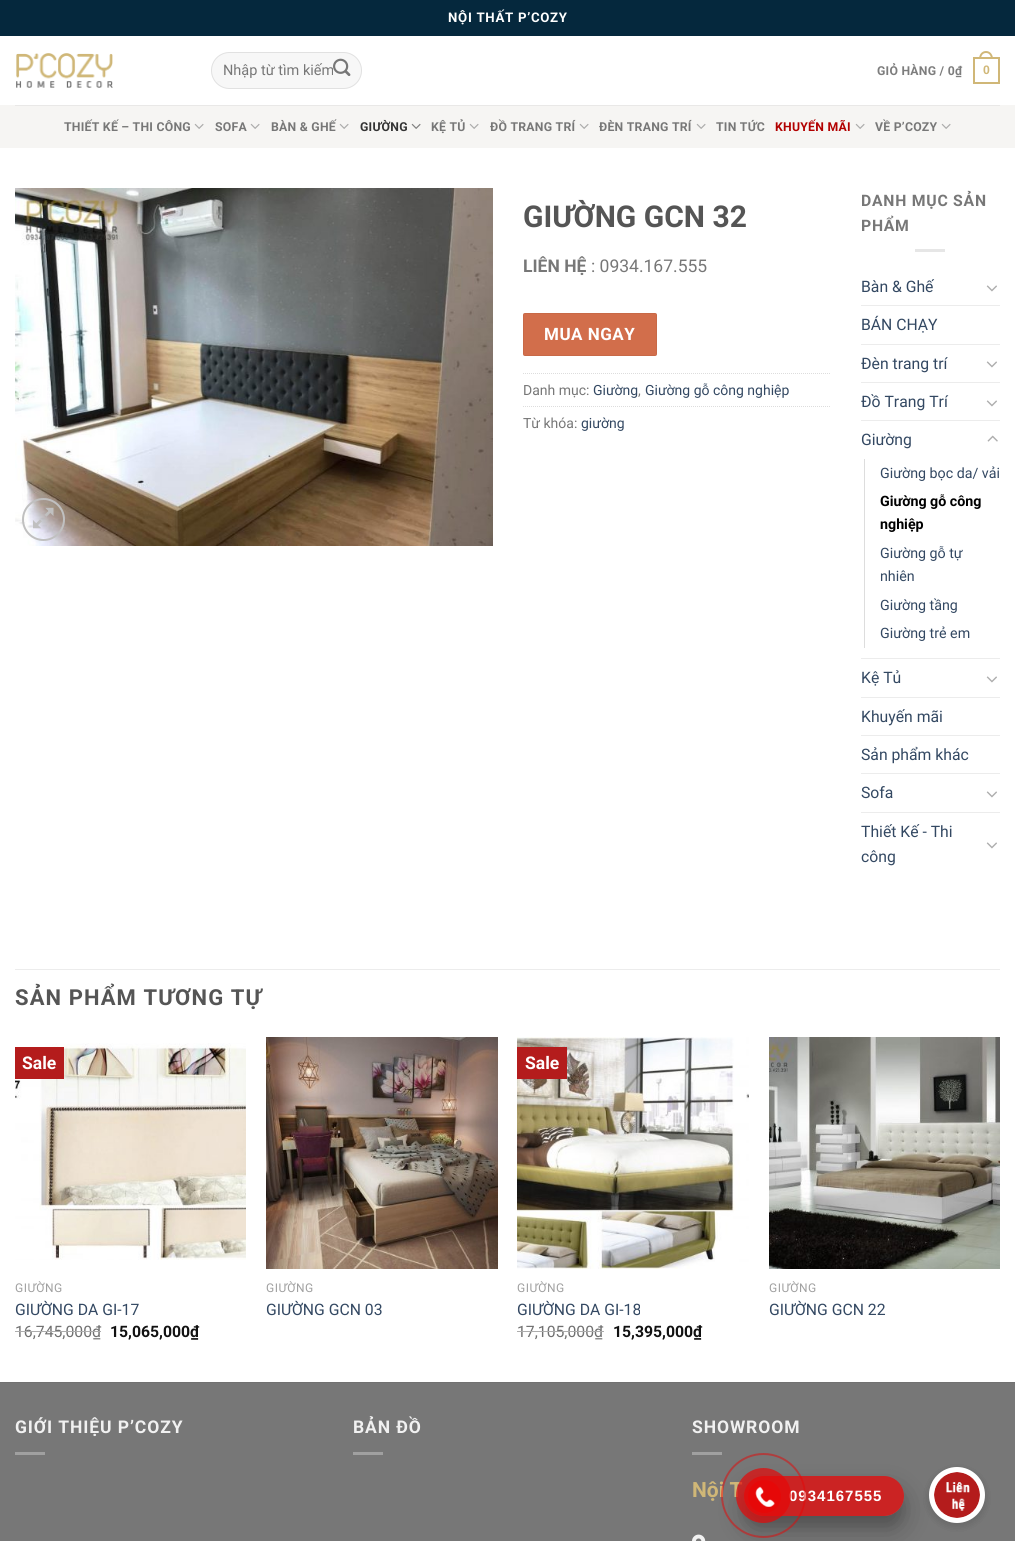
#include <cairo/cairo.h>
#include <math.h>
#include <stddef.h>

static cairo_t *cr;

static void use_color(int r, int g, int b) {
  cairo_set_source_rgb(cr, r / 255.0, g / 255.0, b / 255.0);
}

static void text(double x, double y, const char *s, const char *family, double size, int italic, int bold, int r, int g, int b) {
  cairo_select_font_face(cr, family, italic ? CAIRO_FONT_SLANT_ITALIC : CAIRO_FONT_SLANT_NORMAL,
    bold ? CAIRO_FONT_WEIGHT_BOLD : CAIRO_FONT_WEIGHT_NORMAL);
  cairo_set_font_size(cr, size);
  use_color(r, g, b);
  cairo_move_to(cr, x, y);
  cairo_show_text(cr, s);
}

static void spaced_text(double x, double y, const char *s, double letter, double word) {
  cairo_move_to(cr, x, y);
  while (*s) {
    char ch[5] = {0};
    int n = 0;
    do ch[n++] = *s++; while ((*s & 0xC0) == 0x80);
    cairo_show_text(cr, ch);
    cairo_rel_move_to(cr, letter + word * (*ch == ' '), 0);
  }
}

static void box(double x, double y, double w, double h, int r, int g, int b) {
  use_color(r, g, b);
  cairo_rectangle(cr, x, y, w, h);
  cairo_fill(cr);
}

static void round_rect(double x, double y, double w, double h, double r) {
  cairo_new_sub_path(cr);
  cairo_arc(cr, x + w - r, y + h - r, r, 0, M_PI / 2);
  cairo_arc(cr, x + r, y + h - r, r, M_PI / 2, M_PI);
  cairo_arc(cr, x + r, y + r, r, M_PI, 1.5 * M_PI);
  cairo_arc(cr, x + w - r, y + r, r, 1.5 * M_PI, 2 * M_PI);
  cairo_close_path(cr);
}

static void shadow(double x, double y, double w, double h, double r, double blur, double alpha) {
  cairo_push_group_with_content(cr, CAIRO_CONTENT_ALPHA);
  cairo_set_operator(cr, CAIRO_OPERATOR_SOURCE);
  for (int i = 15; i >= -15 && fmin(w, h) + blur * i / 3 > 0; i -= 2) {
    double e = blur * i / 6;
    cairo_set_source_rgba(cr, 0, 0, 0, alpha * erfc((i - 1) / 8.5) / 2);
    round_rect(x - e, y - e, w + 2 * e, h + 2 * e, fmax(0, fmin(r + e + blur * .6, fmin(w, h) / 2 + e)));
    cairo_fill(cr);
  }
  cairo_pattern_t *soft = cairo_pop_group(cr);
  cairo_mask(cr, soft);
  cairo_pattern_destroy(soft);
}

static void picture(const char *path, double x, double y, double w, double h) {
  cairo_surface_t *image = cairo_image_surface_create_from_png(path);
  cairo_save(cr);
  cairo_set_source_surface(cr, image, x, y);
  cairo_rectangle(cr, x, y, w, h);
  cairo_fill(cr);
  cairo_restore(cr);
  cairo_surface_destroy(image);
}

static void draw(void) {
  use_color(255, 255, 255);
  cairo_paint(cr);
  box(0, 0, 1015, 36, 5, 40, 61);
  picture("img_01.png", 16, 53, 97, 35);
  use_color(247, 247, 247);
  round_rect(211, 52, 151, 37, 18.5);
  cairo_fill(cr);
  round_rect(211.5, 52.5, 150, 36, 18);
  cairo_set_source_rgba(cr, 0, 0, 0, 0.09);
  cairo_set_line_width(cr, 1);
  cairo_stroke(cr);
  cairo_rectangle(cr, 974, 58, 25, 25);
  use_color(208, 183, 119);
  cairo_set_line_width(cr, 2);
  cairo_stroke(cr);
  cairo_set_fill_rule(cr, CAIRO_FILL_RULE_EVEN_ODD);
  cairo_new_path(cr);
  cairo_move_to(cr, 986, 51);
  cairo_curve_to(cr, 990.5, 51, 993, 55, 993, 59);
  cairo_line_to(cr, 979, 59);
  cairo_curve_to(cr, 979, 55, 981.5, 51, 986, 51);
  cairo_close_path(cr);
  cairo_move_to(cr, 986, 53);
  cairo_curve_to(cr, 989.5, 53, 991, 56, 991, 59);
  cairo_line_to(cr, 981, 59);
  cairo_curve_to(cr, 981, 56, 982.5, 53, 986, 53);
  cairo_close_path(cr);
  cairo_fill(cr);
  box(0, 105, 1015, 43, 246, 245, 243);
  box(15, 105, 985, 1, 233, 232, 231);
  picture("img_03.png", 194, 123, 10, 6);
  picture("img_03.png", 250, 123, 10, 6);
  picture("img_03.png", 339, 123, 10, 6);
  picture("img_04.png", 411, 123, 10, 6);
  picture("img_03.png", 469, 123, 10, 6);
  picture("img_03.png", 579, 123, 10, 6);
  picture("img_03.png", 696, 123, 10, 6);
  picture("img_03.png", 855, 123, 10, 6);
  picture("img_03.png", 941, 123, 10, 6);
  picture("img_05.png", 15, 188, 478, 358);
  cairo_arc(cr, 43.5, 519.5, 20.5, 0, 2 * M_PI);
  use_color(192, 192, 192);
  cairo_stroke(cr);
  picture("img_06.png", 33, 507, 21, 22);
  use_color(210, 110, 75);
  round_rect(523, 313, 134, 43, 2);
  cairo_fill(cr);
  cairo_rectangle(cr, 523.5, 313.5, 133, 42);
  cairo_set_source_rgba(cr, 0, 0, 0, 0.05);
  cairo_set_line_width(cr, 1);
  cairo_stroke(cr);
  cairo_new_path(cr);
  cairo_move_to(cr, 523, 373.5);
  cairo_line_to(cr, 831, 373.5);
  use_color(221, 221, 221);
  cairo_set_dash(cr, (double[]){1, 1}, 2, 0);
  cairo_stroke(cr);
  cairo_new_path(cr);
  cairo_move_to(cr, 523, 406.5);
  cairo_line_to(cr, 831, 406.5);
  cairo_stroke(cr);
  box(915, 249, 30, 3, 230, 230, 230);
  picture("img_07.png", 986, 285, 11, 7);
  box(861, 305, 139, 1, 236, 236, 236);
  box(861, 344, 139, 1, 236, 236, 236);
  picture("img_07.png", 986, 361, 11, 7);
  box(861, 382, 139, 1, 236, 236, 236);
  picture("img_07.png", 986, 400, 11, 7);
  box(861, 420, 139, 1, 236, 236, 236);
  picture("img_08.png", 987, 435, 11, 7);
  box(864, 459, 1, 189, 221, 221, 221);
  box(861, 658, 139, 1, 236, 236, 236);
  picture("img_07.png", 986, 676, 11, 7);
  box(861, 697, 139, 1, 236, 236, 236);
  box(861, 735, 139, 1, 236, 236, 236);
  box(861, 773, 139, 1, 236, 236, 236);
  picture("img_07.png", 986, 791, 11, 7);
  box(861, 812, 139, 1, 236, 236, 236);
  picture("img_07.png", 986, 842, 11, 7);
  box(15, 969, 985, 1, 236, 236, 236);
  picture("img_09.png", 15, 1043, 231, 217);
  box(15, 1047, 49, 32, 180, 28, 28);
  picture("img_10.png", 266, 1037, 232, 232);
  picture("img_11.png", 517, 1037, 232, 232);
  box(517, 1047, 50, 32, 180, 28, 28);
  picture("img_12.png", 769, 1037, 231, 232);
  box(0, 1383, 1015, 158, 119, 119, 119);
  box(0, 1382, 1015, 1, 113, 113, 113);
  box(15, 1452, 30, 3, 160, 160, 160);
  box(353, 1452, 30, 3, 160, 160, 160);
  box(692, 1452, 30, 3, 160, 160, 160);
  picture("img_13.png", 692, 1534, 14, 7);
  cairo_save(cr);
  cairo_new_path(cr);
  cairo_move_to(cr, 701, 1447);
  cairo_line_to(cr, 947, 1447);
  cairo_line_to(cr, 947, 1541);
  cairo_line_to(cr, 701, 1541);
  cairo_close_path(cr);
  cairo_move_to(cr, 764, 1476);
  cairo_line_to(cr, 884, 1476);
  cairo_curve_to(cr, 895, 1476, 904, 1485, 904, 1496);
  cairo_curve_to(cr, 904, 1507, 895, 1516, 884, 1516);
  cairo_line_to(cr, 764, 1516);
  cairo_curve_to(cr, 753, 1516, 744, 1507, 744, 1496);
  cairo_curve_to(cr, 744, 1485, 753, 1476, 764, 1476);
  cairo_close_path(cr);
  cairo_clip(cr);
  use_color(0, 0, 0);
  shadow(744, 1490, 160, 40, 20, 14, 0.25);
  cairo_restore(cr);
  picture("img_16.png", 936, 1471, 7, 6);
  picture("img_15.png", 933, 1471, 10, 10);
  use_color(0, 0, 0);
  shadow(929, 1470, 56, 56, 28, 5, 0.08);
  shadow(929, 1470, 56, 56, 28, 5, 0.08);
  use_color(255, 255, 255);
  cairo_arc(cr, 957, 1495, 25.5, 0, 2 * M_PI);
  cairo_fill_preserve(cr);
  cairo_set_line_width(cr, 5);
  cairo_set_dash(cr, NULL, 0, 0);
  cairo_stroke(cr);
  picture("img_14.png", 934, 1472, 46, 46);
  cairo_save(cr);
  cairo_new_path(cr);
  cairo_move_to(cr, 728, 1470);
  cairo_line_to(cr, 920, 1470);
  cairo_line_to(cr, 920, 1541);
  cairo_line_to(cr, 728, 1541);
  cairo_close_path(cr);
  cairo_move_to(cr, 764, 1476);
  cairo_line_to(cr, 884, 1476);
  cairo_curve_to(cr, 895, 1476, 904, 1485, 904, 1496);
  cairo_curve_to(cr, 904, 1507, 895, 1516, 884, 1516);
  cairo_line_to(cr, 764, 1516);
  cairo_curve_to(cr, 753, 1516, 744, 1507, 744, 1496);
  cairo_curve_to(cr, 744, 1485, 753, 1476, 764, 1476);
  cairo_close_path(cr);
  cairo_clip(cr);
  use_color(0, 0, 0);
  shadow(744, 1486, 160, 40, 20, 5, 0.1);
  cairo_restore(cr);
  cairo_set_source_rgba(cr, 0.902, 0.031, 0.031, 0.75);
  round_rect(744, 1476, 160, 40, 20);
  cairo_fill(cr);
  cairo_select_font_face(cr, "Roboto", CAIRO_FONT_SLANT_NORMAL, CAIRO_FONT_WEIGHT_BOLD);
  cairo_set_font_size(cr, 13.25);
  use_color(255, 255, 255);
  spaced_text(448, 22, "NỘI THẤT P’COZY", 0.7, 0);
  text(223, 75, "Nhập từ tìm kiếm", "Roboto", 14.5, 0, 0, 119, 119, 119);
  picture("img_02.png", 333, 58, 18, 18);
  cairo_select_font_face(cr, "Roboto", CAIRO_FONT_SLANT_NORMAL, CAIRO_FONT_WEIGHT_BOLD);
  cairo_set_font_size(cr, 12.25);
  use_color(125, 125, 125);
  spaced_text(877, 75, "GIỎ HÀNG / 0₫", 0.25, 0);
  cairo_select_font_face(cr, "Liberation Sans", CAIRO_FONT_SLANT_NORMAL, CAIRO_FONT_WEIGHT_BOLD);
  use_color(208, 183, 119);
  spaced_text(983, 74, "0", 0.25, 0);
  cairo_select_font_face(cr, "Roboto", CAIRO_FONT_SLANT_NORMAL, CAIRO_FONT_WEIGHT_BOLD);
  use_color(119, 119, 119);
  spaced_text(64, 131, "THIẾT KẾ – THI CÔNG", 0.25, 0);
  spaced_text(215, 131, "SOFA", 0.25, 0);
  spaced_text(271, 131, "BÀN & GHẾ", 0.25, 0);
  use_color(51, 51, 51);
  spaced_text(360, 131, "GIƯỜNG", 0.25, 0);
  use_color(119, 119, 119);
  spaced_text(431, 131, "KỆ TỦ", 0.25, 0);
  spaced_text(490, 131, "ĐỒ TRANG TRÍ", 0.25, 0);
  spaced_text(599, 131, "ĐÈN TRANG TRÍ", 0.25, 0);
  spaced_text(716, 131, "TIN TỨC", 0.25, 0);
  use_color(178, 0, 0);
  spaced_text(775, 131, "KHUYẾN MÃI", 0.25, 0);
  use_color(119, 119, 119);
  spaced_text(875, 131, "VỀ P’COZY", 0.25, 0);
  text(523, 227, "GIƯỜNG GCN 32", "Roboto", 30, 0, 1, 85, 85, 85);
  text(523, 272, "LIÊN HỆ", "Roboto", 17.5, 0, 1, 119, 119, 119);
  text(591, 272, ": 0934.167.555", "Roboto", 17.5, 0, 0, 119, 119, 119);
  cairo_select_font_face(cr, "Roboto", CAIRO_FONT_SLANT_NORMAL, CAIRO_FONT_WEIGHT_BOLD);
  cairo_set_font_size(cr, 17);
  use_color(255, 255, 255);
  spaced_text(544, 340, "MUA NGAY", 0.5, 0);
  text(523, 395, "Danh mục:", "Roboto", 14, 0, 0, 119, 119, 119);
  text(593, 395, "Giường", "Roboto", 14, 0, 0, 51, 72, 98);
  text(638, 395, ",", "Roboto", 14, 0, 0, 119, 119, 119);
  text(645, 395, "Giường gỗ công nghiệp", "Roboto", 14, 0, 0, 51, 72, 98);
  text(523, 428, "Từ khóa:", "Roboto", 14, 0, 0, 119, 119, 119);
  text(581, 428, "giường", "Roboto", 14, 0, 0, 51, 72, 98);
  cairo_select_font_face(cr, "Roboto", CAIRO_FONT_SLANT_NORMAL, CAIRO_FONT_WEIGHT_BOLD);
  cairo_set_font_size(cr, 15.75);
  use_color(119, 119, 119);
  spaced_text(861, 206, "DANH MỤC SẢN", 0.75, 0);
  spaced_text(861, 231, "PHẨM", 0.75, 0);
  text(861, 292, "Bàn & Ghế", "Roboto", 15.75, 0, 0, 51, 72, 98);
  text(861, 330, "BÁN CHẠY", "Roboto", 15.75, 0, 0, 51, 72, 98);
  text(861, 369, "Đèn trang trí", "Roboto", 15.75, 0, 0, 51, 72, 98);
  text(861, 407, "Đồ Trang Trí", "Roboto", 15.75, 0, 0, 51, 72, 98);
  text(861, 445, "Giường", "Roboto", 15.75, 0, 0, 51, 72, 98);
  text(880, 478, "Giường bọc da/ vải", "Roboto", 14.25, 0, 0, 51, 72, 98);
  text(880, 506, "Giường gỗ công", "Roboto", 14.25, 0, 1, 0, 0, 0);
  text(880, 529, "nghiệp", "Roboto", 14.25, 0, 1, 0, 0, 0);
  text(880, 558, "Giường gỗ tự", "Roboto", 14.25, 0, 0, 51, 72, 98);
  text(880, 581, "nhiên", "Roboto", 14.25, 0, 0, 51, 72, 98);
  text(880, 610, "Giường tầng", "Roboto", 14.25, 0, 0, 51, 72, 98);
  text(880, 638, "Giường trẻ em", "Roboto", 14.25, 0, 0, 51, 72, 98);
  text(861, 683, "Kệ Tủ", "Roboto", 15.75, 0, 0, 51, 72, 98);
  text(861, 722, "Khuyến mãi", "Roboto", 15.75, 0, 0, 51, 72, 98);
  text(861, 760, "Sản phẩm khác", "Roboto", 15.75, 0, 0, 51, 72, 98);
  text(861, 798, "Sofa", "Roboto", 15.75, 0, 0, 51, 72, 98);
  text(861, 837, "Thiết Kế - Thi", "Roboto", 15.75, 0, 0, 51, 72, 98);
  text(861, 862, "công", "Roboto", 15.75, 0, 0, 51, 72, 98);
  cairo_select_font_face(cr, "Roboto", CAIRO_FONT_SLANT_NORMAL, CAIRO_FONT_WEIGHT_BOLD);
  cairo_set_font_size(cr, 22);
  use_color(85, 85, 85);
  spaced_text(15, 1005, "SẢN PHẨM TƯƠNG TỰ", 1.1, 0);
  text(22, 1069, "Sale", "Roboto", 17.5, 0, 1, 255, 255, 255);
  cairo_select_font_face(cr, "Roboto", CAIRO_FONT_SLANT_NORMAL, CAIRO_FONT_WEIGHT_NORMAL);
  cairo_set_font_size(cr, 12);
  use_color(160, 160, 160);
  spaced_text(15, 1292, "GIƯỜNG", 0.5, 0);
  text(15, 1315, "GIƯỜNG DA GI-17", "Roboto", 15.75, 0, 0, 51, 72, 98);
  text(15, 1337, "16,745,000₫", "Roboto", 15.75, 0, 0, 112, 112, 112);
  box(15, 1331, 86, 1, 173, 173, 173);
  text(110, 1337, "15,065,000₫", "Roboto", 15.75, 0, 1, 17, 17, 17);
  cairo_select_font_face(cr, "Roboto", CAIRO_FONT_SLANT_NORMAL, CAIRO_FONT_WEIGHT_NORMAL);
  cairo_set_font_size(cr, 12);
  use_color(160, 160, 160);
  spaced_text(266, 1292, "GIƯỜNG", 0.5, 0);
  text(266, 1315, "GIƯỜNG GCN 03", "Roboto", 15.75, 0, 0, 51, 72, 98);
  text(525, 1069, "Sale", "Roboto", 17.5, 0, 1, 255, 255, 255);
  cairo_select_font_face(cr, "Roboto", CAIRO_FONT_SLANT_NORMAL, CAIRO_FONT_WEIGHT_NORMAL);
  cairo_set_font_size(cr, 12);
  use_color(160, 160, 160);
  spaced_text(517, 1292, "GIƯỜNG", 0.5, 0);
  text(517, 1315, "GIƯỜNG DA GI-18", "Roboto", 15.75, 0, 0, 51, 72, 98);
  text(517, 1337, "17,105,000₫", "Roboto", 15.75, 0, 0, 112, 112, 112);
  box(517, 1331, 87, 1, 173, 173, 173);
  text(613, 1337, "15,395,000₫", "Roboto", 15.75, 0, 1, 17, 17, 17);
  cairo_select_font_face(cr, "Roboto", CAIRO_FONT_SLANT_NORMAL, CAIRO_FONT_WEIGHT_NORMAL);
  cairo_set_font_size(cr, 12);
  use_color(160, 160, 160);
  spaced_text(769, 1292, "GIƯỜNG", 0.5, 0);
  text(769, 1315, "GIƯỜNG GCN 22", "Roboto", 15.75, 0, 0, 51, 72, 98);
  cairo_select_font_face(cr, "Roboto", CAIRO_FONT_SLANT_NORMAL, CAIRO_FONT_WEIGHT_BOLD);
  cairo_set_font_size(cr, 17.5);
  use_color(241, 241, 241);
  spaced_text(15, 1433, "GIỚI THIỆU P’COZY", 0.9, 0);
  spaced_text(353, 1433, "BẢN ĐỒ", 0.9, 0);
  spaced_text(692, 1433, "SHOWROOM", 0.9, 0);
  text(692, 1497, "Nội T", "Roboto", 21, 0, 1, 208, 183, 119);
  cairo_select_font_face(cr, "Liberation Sans", CAIRO_FONT_SLANT_NORMAL, CAIRO_FONT_WEIGHT_BOLD);
  cairo_set_font_size(cr, 15);
  use_color(255, 255, 255);
  spaced_text(789, 1501, "0934167555", 1, 0);
  cairo_new_path(cr);
  cairo_arc(cr, 763.5, 1495.5, 41.5, 0, 2 * M_PI);
  cairo_set_source_rgba(cr, 0.902, 0.031, 0.031, 0.5);
  cairo_set_line_width(cr, 2);
  cairo_stroke(cr);
  cairo_set_source_rgba(cr, 0.902, 0.031, 0.031, 0.7);
  cairo_arc(cr, 763.5, 1495.5, 27.5, 0, 2 * M_PI);
  cairo_fill(cr);
  use_color(230, 8, 8);
  cairo_arc(cr, 764.5, 1496.5, 16.5, 0, 2 * M_PI);
  cairo_fill(cr);
  picture("img_17.png", 755, 1486, 20, 21);
}

int main(void) {
  cairo_surface_t *surface = cairo_image_surface_create(CAIRO_FORMAT_RGB24, 1015, 1541);
  cr = cairo_create(surface);
  cairo_font_options_t *options = cairo_font_options_create();
  cairo_font_options_set_hint_metrics(options, CAIRO_HINT_METRICS_OFF);
  cairo_font_options_set_hint_style(options, CAIRO_HINT_STYLE_NONE);
  cairo_set_font_options(cr, options);
  cairo_set_miter_limit(cr, 4);
  draw();
  cairo_surface_write_to_png(surface, "out.png");
  cairo_font_options_destroy(options);
  cairo_destroy(cr);
  cairo_surface_destroy(surface);
  return 0;
}
